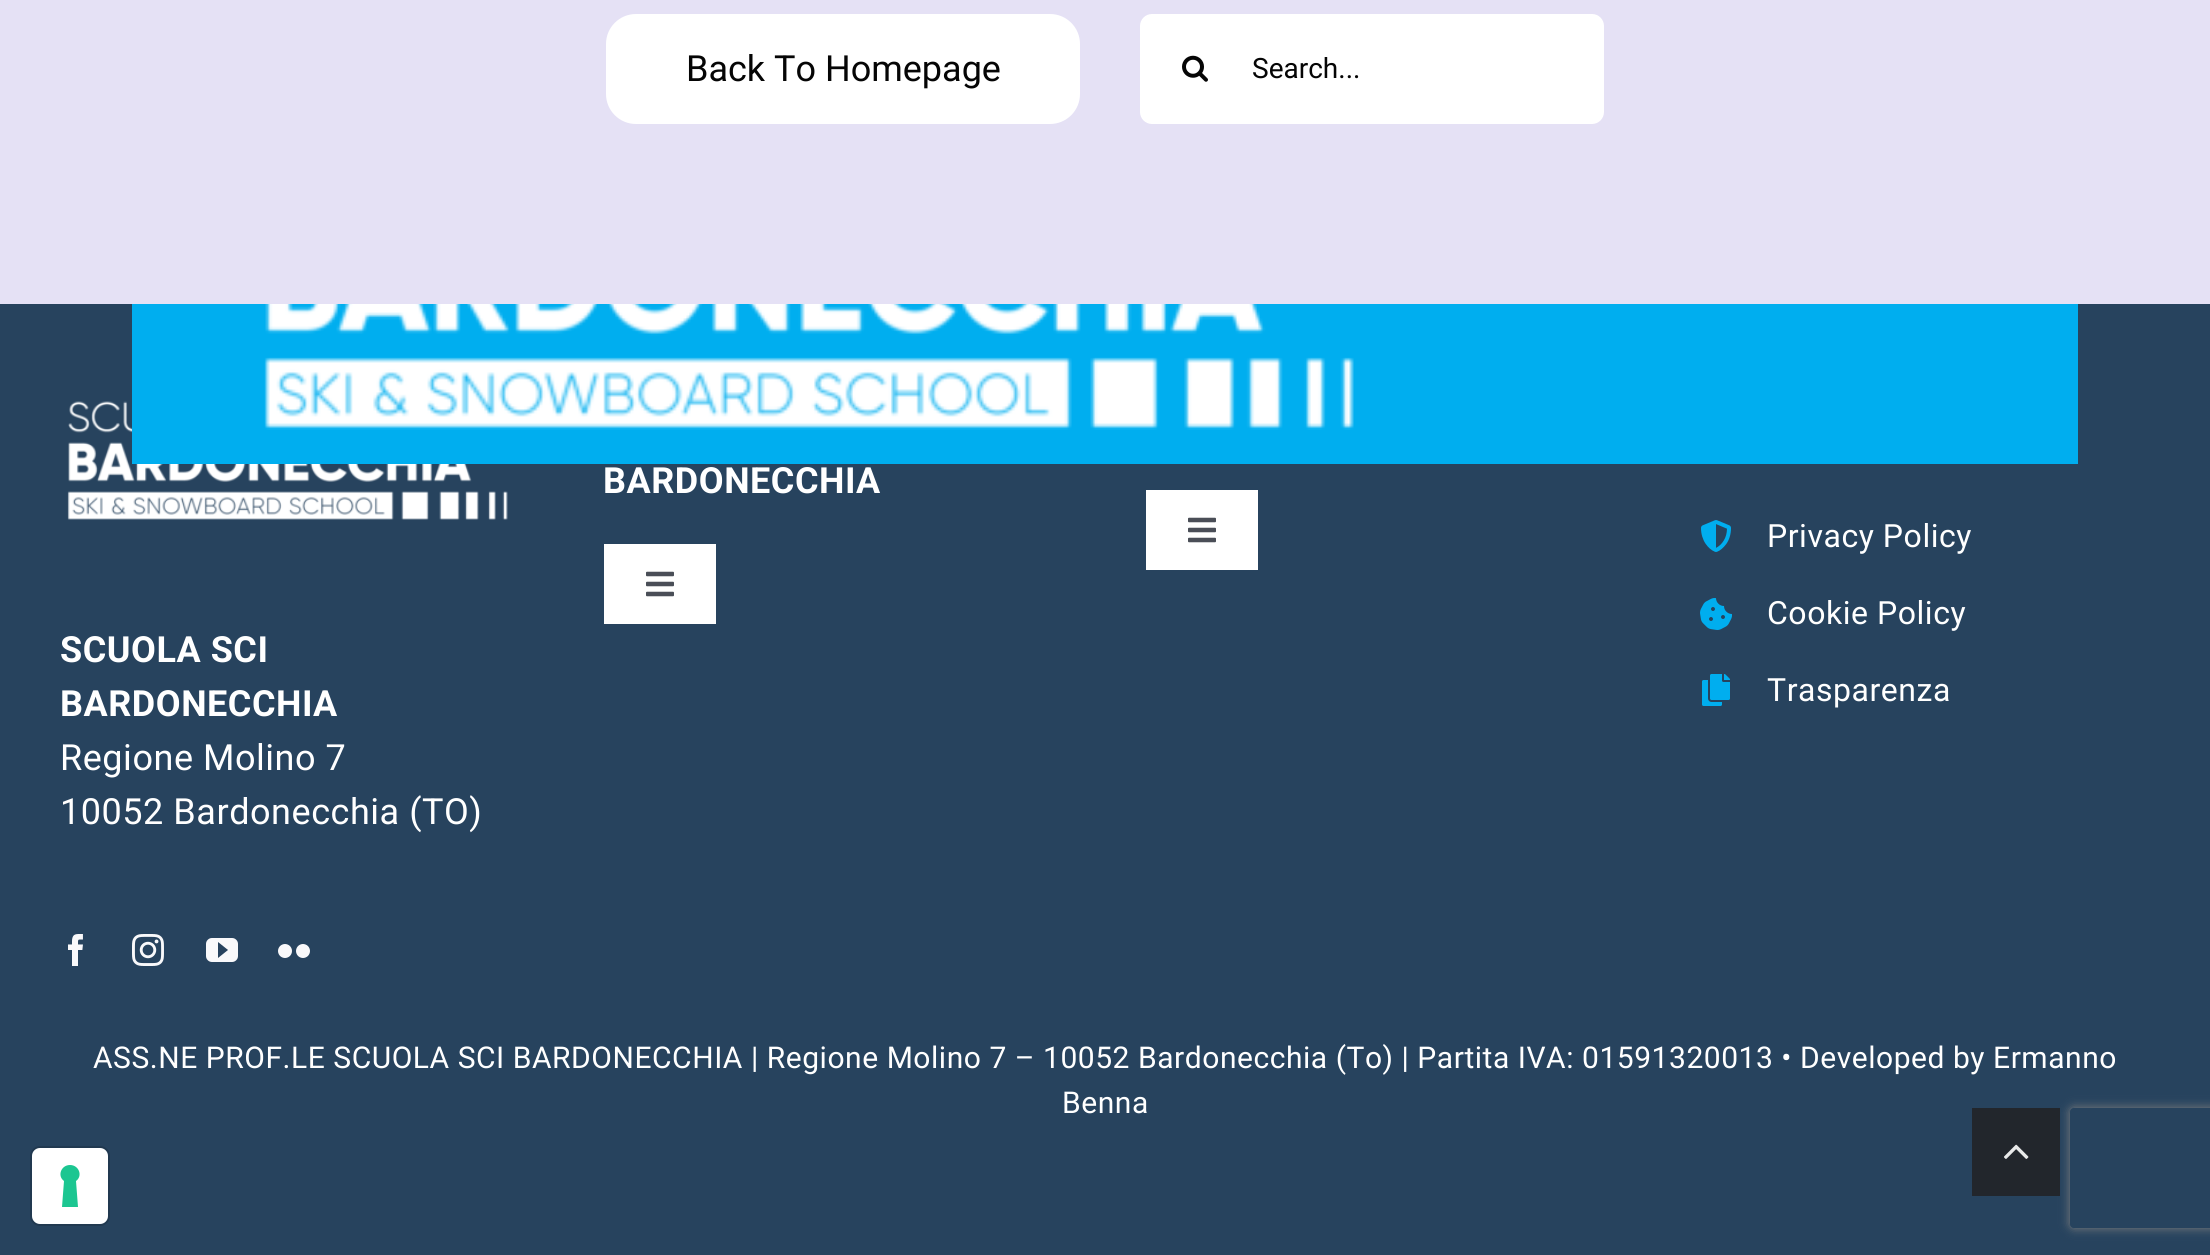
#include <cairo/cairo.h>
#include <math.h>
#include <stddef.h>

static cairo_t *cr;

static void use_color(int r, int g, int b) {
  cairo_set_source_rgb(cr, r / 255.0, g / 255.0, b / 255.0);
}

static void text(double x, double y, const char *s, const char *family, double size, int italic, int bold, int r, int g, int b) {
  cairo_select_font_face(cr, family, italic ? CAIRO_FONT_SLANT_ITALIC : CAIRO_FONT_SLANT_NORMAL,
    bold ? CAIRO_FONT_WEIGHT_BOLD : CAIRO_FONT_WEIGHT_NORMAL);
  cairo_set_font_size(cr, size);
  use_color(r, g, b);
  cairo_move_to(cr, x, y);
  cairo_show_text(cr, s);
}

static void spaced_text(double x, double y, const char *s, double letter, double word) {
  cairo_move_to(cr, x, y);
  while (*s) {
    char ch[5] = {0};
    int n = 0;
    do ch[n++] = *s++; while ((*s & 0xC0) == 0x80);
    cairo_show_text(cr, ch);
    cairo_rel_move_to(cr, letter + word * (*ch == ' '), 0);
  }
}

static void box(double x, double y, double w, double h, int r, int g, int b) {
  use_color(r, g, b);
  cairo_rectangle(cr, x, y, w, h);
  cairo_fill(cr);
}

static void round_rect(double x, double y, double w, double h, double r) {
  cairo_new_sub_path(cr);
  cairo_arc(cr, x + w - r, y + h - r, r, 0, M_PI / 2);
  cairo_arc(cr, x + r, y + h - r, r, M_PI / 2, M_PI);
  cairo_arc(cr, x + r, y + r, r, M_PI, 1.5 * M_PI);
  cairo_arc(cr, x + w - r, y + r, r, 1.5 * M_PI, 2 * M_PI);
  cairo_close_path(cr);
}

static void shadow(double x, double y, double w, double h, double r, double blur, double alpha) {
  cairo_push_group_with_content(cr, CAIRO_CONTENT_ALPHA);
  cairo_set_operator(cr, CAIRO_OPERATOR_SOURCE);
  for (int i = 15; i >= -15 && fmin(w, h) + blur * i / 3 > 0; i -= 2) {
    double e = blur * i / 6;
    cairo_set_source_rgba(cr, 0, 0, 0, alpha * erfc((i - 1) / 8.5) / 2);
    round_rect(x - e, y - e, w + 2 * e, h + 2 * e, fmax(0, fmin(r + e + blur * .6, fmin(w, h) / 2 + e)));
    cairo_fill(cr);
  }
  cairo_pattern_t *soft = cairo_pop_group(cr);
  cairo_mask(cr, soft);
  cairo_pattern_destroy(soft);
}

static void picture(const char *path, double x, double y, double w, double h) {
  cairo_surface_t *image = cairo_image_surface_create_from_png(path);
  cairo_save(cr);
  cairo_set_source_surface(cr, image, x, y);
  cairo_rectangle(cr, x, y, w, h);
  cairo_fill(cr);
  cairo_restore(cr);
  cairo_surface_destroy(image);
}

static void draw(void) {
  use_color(39, 67, 94);
  cairo_paint(cr);
  box(0, 0, 2210, 304, 229, 225, 245);
  use_color(255, 255, 255);
  round_rect(606, 14, 474, 110, 30);
  cairo_fill(cr);
  round_rect(1141, 15, 462, 108, 11);
  cairo_fill_preserve(cr);
  cairo_stroke(cr);
  picture("img_01.png", 1182, 55, 26, 27);
  picture("img_07.png", 67, 401, 441, 119);
  box(132, 304, 1946, 160, 0, 174, 239);
  picture("img_02.png", 264, 304, 1090, 126);
  box(604, 544, 112, 80, 255, 255, 255);
  picture("img_03.png", 646, 571, 28, 26);
  box(1146, 490, 112, 80, 255, 255, 255);
  picture("img_03.png", 1188, 517, 28, 26);
  picture("img_04.png", 1701, 520, 30, 32);
  picture("img_05.png", 1700, 598, 32, 32);
  picture("img_06.png", 1702, 674, 28, 32);
  picture("img_08.png", 68, 934, 15, 32);
  picture("img_09.png", 132, 934, 32, 32);
  picture("img_10.png", 206, 938, 32, 24);
  picture("img_11.png", 278, 944, 32, 14);
  round_rect(31, 1147, 78, 78, 9);
  use_color(33, 57, 80);
  cairo_stroke(cr);
  use_color(255, 255, 255);
  round_rect(32, 1148, 76, 76, 8);
  cairo_fill(cr);
  use_color(28, 198, 145);
  cairo_set_fill_rule(cr, CAIRO_FILL_RULE_EVEN_ODD);
  cairo_new_path(cr);
  cairo_move_to(cr, 70, 1165);
  cairo_curve_to(cr, 79, 1165, 83, 1176, 76, 1181);
  cairo_line_to(cr, 78, 1207);
  cairo_line_to(cr, 62, 1207);
  cairo_line_to(cr, 64, 1181);
  cairo_curve_to(cr, 57, 1176, 61, 1165, 70, 1165);
  cairo_close_path(cr);
  cairo_fill(cr);
  cairo_save(cr);
  cairo_new_path(cr);
  cairo_move_to(cr, 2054, 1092);
  cairo_line_to(cr, 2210, 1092);
  cairo_line_to(cr, 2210, 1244);
  cairo_line_to(cr, 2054, 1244);
  cairo_close_path(cr);
  cairo_move_to(cr, 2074, 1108);
  cairo_line_to(cr, 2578, 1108);
  cairo_curve_to(cr, 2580, 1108, 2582, 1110, 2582, 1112);
  cairo_line_to(cr, 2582, 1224);
  cairo_curve_to(cr, 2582, 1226, 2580, 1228, 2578, 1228);
  cairo_line_to(cr, 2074, 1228);
  cairo_curve_to(cr, 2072, 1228, 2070, 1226, 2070, 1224);
  cairo_line_to(cr, 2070, 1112);
  cairo_curve_to(cr, 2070, 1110, 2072, 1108, 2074, 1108);
  cairo_close_path(cr);
  cairo_clip(cr);
  use_color(128, 128, 128);
  shadow(2070, 1108, 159, 120, 4, 5, 1);
  cairo_restore(cr);
  box(1972, 1108, 88, 88, 34, 38, 44);
  picture("img_12.png", 2004, 1144, 25, 15);
  text(686, 81, "Back To Homepage", "Roboto", 36, 0, 0, 5, 5, 5);
  text(1252, 78, "Search...", "Roboto", 28, 0, 0, 5, 5, 5);
  cairo_select_font_face(cr, "Roboto", CAIRO_FONT_SLANT_NORMAL, CAIRO_FONT_WEIGHT_BOLD);
  cairo_set_font_size(cr, 36);
  use_color(255, 255, 255);
  spaced_text(603, 493, "BARDONECCHIA", 0.54, 0);
  cairo_select_font_face(cr, "Roboto", CAIRO_FONT_SLANT_NORMAL, CAIRO_FONT_WEIGHT_NORMAL);
  cairo_set_font_size(cr, 32);
  spaced_text(1767, 547, "Privacy Policy", 0.54, 0);
  spaced_text(1767, 624, "Cookie Policy", 0.54, 0);
  spaced_text(1767, 701, "Trasparenza", 0.54, 0);
  cairo_select_font_face(cr, "Roboto", CAIRO_FONT_SLANT_NORMAL, CAIRO_FONT_WEIGHT_BOLD);
  cairo_set_font_size(cr, 36);
  spaced_text(60, 662, "SCUOLA SCI", 0.54, 0);
  spaced_text(60, 716, "BARDONECCHIA", 0.54, 0);
  cairo_select_font_face(cr, "Roboto", CAIRO_FONT_SLANT_NORMAL, CAIRO_FONT_WEIGHT_NORMAL);
  spaced_text(60, 770, "Regione Molino 7", 0.54, 0);
  spaced_text(60, 824, "10052 Bardonecchia (TO)", 0.54, 0);
  cairo_set_font_size(cr, 30);
  spaced_text(93, 1068, "ASS.NE PROF.LE SCUOLA SCI BARDONECCHIA | Regione Molino 7 – 10052 Bardonecchia (To) | Partita IVA: 01591320013 • Developed by Ermanno", 0.54, 0);
  spaced_text(1062, 1113, "Benna", 0.54, 0);
}

int main(void) {
  cairo_surface_t *surface = cairo_image_surface_create(CAIRO_FORMAT_RGB24, 2210, 1255);
  cr = cairo_create(surface);
  cairo_font_options_t *options = cairo_font_options_create();
  cairo_font_options_set_hint_metrics(options, CAIRO_HINT_METRICS_OFF);
  cairo_font_options_set_hint_style(options, CAIRO_HINT_STYLE_NONE);
  cairo_set_font_options(cr, options);
  cairo_set_miter_limit(cr, 4);
  draw();
  cairo_surface_write_to_png(surface, "out.png");
  cairo_font_options_destroy(options);
  cairo_destroy(cr);
  cairo_surface_destroy(surface);
  return 0;
}
